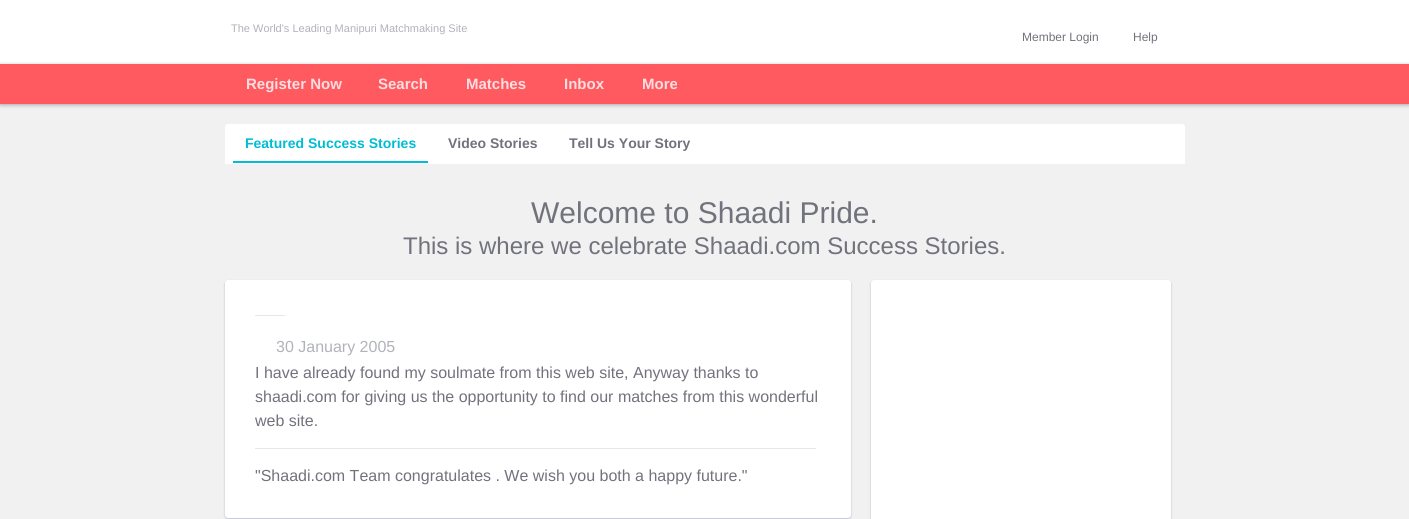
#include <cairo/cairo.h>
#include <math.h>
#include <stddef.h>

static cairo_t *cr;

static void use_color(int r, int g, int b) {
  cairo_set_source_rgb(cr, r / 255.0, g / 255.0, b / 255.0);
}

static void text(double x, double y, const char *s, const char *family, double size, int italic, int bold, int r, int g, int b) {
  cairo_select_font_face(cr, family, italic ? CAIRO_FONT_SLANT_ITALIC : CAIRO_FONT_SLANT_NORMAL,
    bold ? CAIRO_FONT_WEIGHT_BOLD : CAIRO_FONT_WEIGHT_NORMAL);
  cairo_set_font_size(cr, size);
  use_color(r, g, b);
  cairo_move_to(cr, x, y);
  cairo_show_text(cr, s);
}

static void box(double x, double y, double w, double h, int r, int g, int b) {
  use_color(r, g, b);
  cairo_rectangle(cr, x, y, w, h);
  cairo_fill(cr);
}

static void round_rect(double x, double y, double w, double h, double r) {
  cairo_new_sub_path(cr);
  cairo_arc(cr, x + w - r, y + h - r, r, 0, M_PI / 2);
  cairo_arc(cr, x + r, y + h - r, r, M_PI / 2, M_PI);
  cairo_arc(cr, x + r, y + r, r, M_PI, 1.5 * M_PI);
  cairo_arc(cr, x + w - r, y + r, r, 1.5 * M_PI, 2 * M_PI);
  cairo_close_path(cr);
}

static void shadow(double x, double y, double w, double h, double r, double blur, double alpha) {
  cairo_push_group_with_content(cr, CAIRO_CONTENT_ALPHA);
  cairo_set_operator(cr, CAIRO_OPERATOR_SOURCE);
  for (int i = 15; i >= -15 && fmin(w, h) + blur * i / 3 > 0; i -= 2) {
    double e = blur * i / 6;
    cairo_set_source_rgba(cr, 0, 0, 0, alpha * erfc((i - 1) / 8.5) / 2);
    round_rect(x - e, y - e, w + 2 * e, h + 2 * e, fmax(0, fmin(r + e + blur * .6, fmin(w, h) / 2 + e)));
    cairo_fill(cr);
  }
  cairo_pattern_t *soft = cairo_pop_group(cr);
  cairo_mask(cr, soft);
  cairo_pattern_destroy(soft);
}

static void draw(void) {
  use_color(241, 241, 242);
  cairo_paint(cr);
  box(0, 0, 1409, 64, 255, 255, 255);
  use_color(0, 0, 0);
  shadow(0, 65, 1409, 40, 0, 2, 0.3);
  box(0, 64, 1409, 40, 255, 90, 96);
  use_color(255, 255, 255);
  cairo_new_path(cr);
  cairo_move_to(cr, 228, 124);
  cairo_line_to(cr, 1182, 124);
  cairo_curve_to(cr, 1183.5, 124, 1185, 125.5, 1185, 127);
  cairo_line_to(cr, 1185, 164);
  cairo_line_to(cr, 225, 164);
  cairo_line_to(cr, 225, 127);
  cairo_curve_to(cr, 225, 125.5, 226.5, 124, 228, 124);
  cairo_close_path(cr);
  cairo_fill(cr);
  box(233, 161, 195, 2, 0, 188, 213);
  use_color(43, 59, 93);
  shadow(225, 281, 626, 238, 3, 1, 0.29);
  use_color(255, 255, 255);
  round_rect(225, 280, 626, 238, 3);
  cairo_fill(cr);
  box(255, 315, 30, 1, 231, 231, 231);
  box(255, 448, 561, 1, 231, 231, 231);
  use_color(43, 59, 93);
  shadow(871, 281, 300, 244, 3, 1, 0.29);
  use_color(255, 255, 255);
  round_rect(871, 280, 300, 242, 3);
  cairo_fill(cr);
  text(231, 32, "The World's Leading Manipuri Matchmaking Site", "Liberation Sans", 11, 0, 0, 177, 179, 185);
  text(1022, 41, "Member Login", "Liberation Sans", 12, 0, 0, 114, 114, 125);
  text(1133, 41, "Help", "Liberation Sans", 12, 0, 0, 114, 114, 125);
  text(246, 89, "Register Now", "Liberation Sans", 15, 0, 1, 252, 222, 224);
  text(378, 89, "Search", "Liberation Sans", 15, 0, 1, 252, 222, 224);
  text(466, 89, "Matches", "Liberation Sans", 15, 0, 1, 252, 222, 224);
  text(564, 89, "Inbox", "Liberation Sans", 15, 0, 1, 252, 222, 224);
  text(642, 89, "More", "Liberation Sans", 15, 0, 1, 252, 222, 224);
  text(245, 148, "Featured Success Stories", "Liberation Sans", 14, 0, 1, 0, 188, 213);
  text(448, 148, "Video Stories", "Liberation Sans", 14, 0, 1, 114, 114, 125);
  text(569, 148, "Tell Us Your Story", "Liberation Sans", 14, 0, 1, 114, 114, 125);
  text(531, 223, "Welcome to Shaadi Pride.", "Liberation Sans", 30, 0, 0, 114, 114, 125);
  text(403, 254, "This is where we celebrate Shaadi.com Success Stories.", "Liberation Sans", 24, 0, 0, 114, 114, 125);
  text(276, 352, "30 January 2005", "Liberation Sans", 16, 0, 0, 177, 179, 185);
  text(255, 378, "I have already found my soulmate from this web site, Anyway thanks to", "Liberation Sans", 16, 0, 0, 114, 114, 125);
  text(255, 402, "shaadi.com for giving us the opportunity to find our matches from this wonderful", "Liberation Sans", 16, 0, 0, 114, 114, 125);
  text(255, 426, "web site.", "Liberation Sans", 16, 0, 0, 114, 114, 125);
  text(255, 481, "\"Shaadi.com Team congratulates . We wish you both a happy future.\"", "Liberation Sans", 16, 0, 0, 114, 114, 125);
}

int main(void) {
  cairo_surface_t *surface = cairo_image_surface_create(CAIRO_FORMAT_RGB24, 1409, 519);
  cr = cairo_create(surface);
  cairo_font_options_t *options = cairo_font_options_create();
  cairo_font_options_set_hint_metrics(options, CAIRO_HINT_METRICS_OFF);
  cairo_font_options_set_hint_style(options, CAIRO_HINT_STYLE_NONE);
  cairo_set_font_options(cr, options);
  cairo_set_miter_limit(cr, 4);
  draw();
  cairo_surface_write_to_png(surface, "out.png");
  cairo_font_options_destroy(options);
  cairo_destroy(cr);
  cairo_surface_destroy(surface);
  return 0;
}
